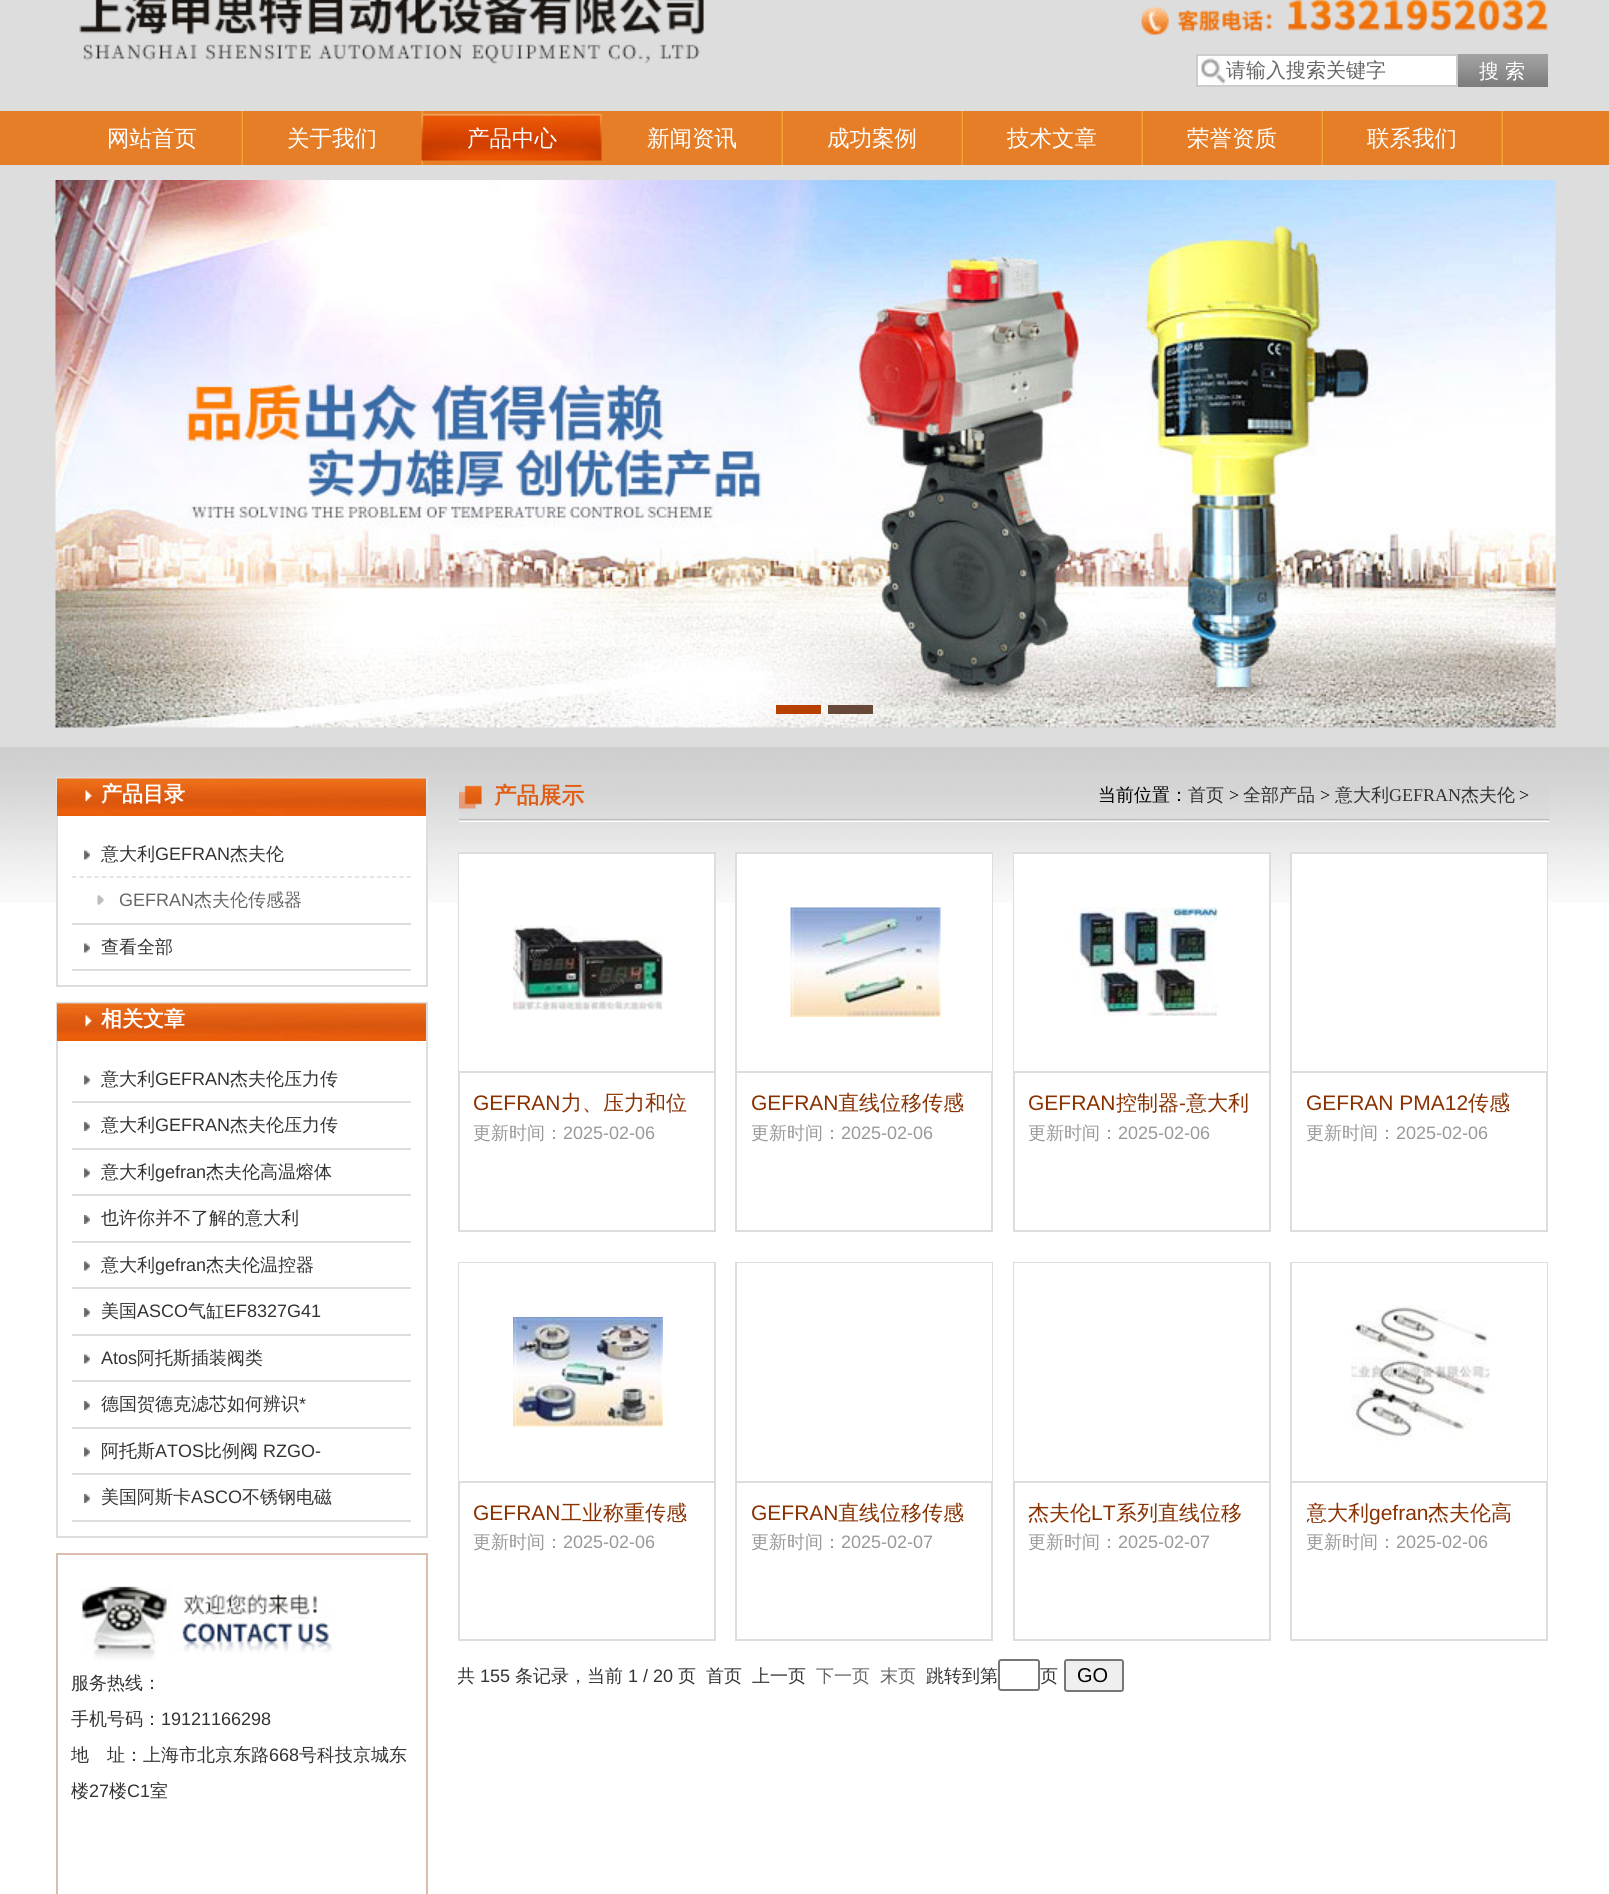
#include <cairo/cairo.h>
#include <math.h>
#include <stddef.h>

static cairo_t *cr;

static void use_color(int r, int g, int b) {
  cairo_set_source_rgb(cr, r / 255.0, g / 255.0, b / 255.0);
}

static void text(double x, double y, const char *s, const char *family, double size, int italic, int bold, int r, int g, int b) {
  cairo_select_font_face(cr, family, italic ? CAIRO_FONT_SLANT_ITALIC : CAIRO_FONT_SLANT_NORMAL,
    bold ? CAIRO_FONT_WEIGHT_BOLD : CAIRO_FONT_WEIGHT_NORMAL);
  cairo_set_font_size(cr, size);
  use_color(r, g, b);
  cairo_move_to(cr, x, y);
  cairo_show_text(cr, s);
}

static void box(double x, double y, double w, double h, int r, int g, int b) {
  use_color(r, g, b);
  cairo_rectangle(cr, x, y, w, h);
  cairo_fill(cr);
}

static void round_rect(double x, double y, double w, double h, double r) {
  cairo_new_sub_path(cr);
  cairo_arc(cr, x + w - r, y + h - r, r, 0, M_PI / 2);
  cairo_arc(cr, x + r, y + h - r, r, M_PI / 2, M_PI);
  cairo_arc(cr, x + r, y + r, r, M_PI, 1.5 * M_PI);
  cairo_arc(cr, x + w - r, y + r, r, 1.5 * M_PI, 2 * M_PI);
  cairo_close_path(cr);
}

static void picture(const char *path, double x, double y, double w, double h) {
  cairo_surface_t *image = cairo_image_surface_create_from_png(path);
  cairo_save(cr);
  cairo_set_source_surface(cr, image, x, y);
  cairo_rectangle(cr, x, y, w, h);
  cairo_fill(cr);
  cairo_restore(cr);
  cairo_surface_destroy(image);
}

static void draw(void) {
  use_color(255, 255, 255);
  cairo_paint(cr);
  box(0, 0, 1609, 111, 221, 221, 221);
  picture("img_01.png", 79, 0, 625, 64);
  picture("img_02.png", 1141, 0, 408, 35);
  box(1198, 56, 258, 29, 255, 255, 255);
  picture("img_03.png", 1201, 56, 25, 29);
  cairo_rectangle(cr, 1197, 55, 260, 31);
  use_color(204, 204, 204);
  cairo_stroke(cr);
  picture("img_04.png", 1458, 54, 90, 33);
  box(0, 111, 1609, 54, 230, 126, 39);
  picture("img_05.png", 241, 111, 2, 54);
  picture("img_05.png", 421, 111, 2, 54);
  picture("img_06.png", 421, 114, 181, 47);
  picture("img_05.png", 781, 111, 2, 54);
  picture("img_05.png", 961, 111, 2, 54);
  picture("img_05.png", 1141, 111, 2, 54);
  picture("img_05.png", 1321, 111, 2, 54);
  picture("img_05.png", 1501, 111, 2, 54);
  box(0, 165, 1609, 582, 221, 221, 221);
  picture("img_07.png", 55, 180, 1501, 548);
  box(776, 705, 45, 9, 183, 64, 0);
  box(828, 705, 45, 9, 104, 73, 57);
  picture("img_08.png", 0, 747, 1609, 156);
  box(58, 816, 368, 87, 255, 255, 255);
  cairo_rectangle(cr, 57, 778, 370, 208);
  use_color(221, 221, 221);
  cairo_stroke(cr);
  picture("img_09.png", 57, 778, 369, 38);
  box(72, 923, 339, 2, 221, 221, 221);
  picture("img_10.png", 84, 850, 6, 10);
  cairo_new_path(cr);
  cairo_move_to(cr, 72, 877);
  cairo_line_to(cr, 411, 877);
  cairo_set_line_width(cr, 1.5);
  cairo_set_dash(cr, (double[]){4.5, 2.94}, 2, 0);
  cairo_stroke(cr);
  picture("img_11.png", 97, 895, 7, 10);
  box(72, 969, 339, 2, 221, 221, 221);
  picture("img_10.png", 84, 943, 6, 10);
  cairo_rectangle(cr, 57, 1003, 370, 534);
  cairo_set_line_width(cr, 2);
  cairo_set_dash(cr, NULL, 0, 0);
  cairo_stroke(cr);
  picture("img_09.png", 57, 1003, 369, 38);
  box(72, 1101, 339, 2, 221, 221, 221);
  picture("img_10.png", 84, 1075, 6, 10);
  box(72, 1148, 339, 2, 221, 221, 221);
  picture("img_12.png", 84, 1122, 6, 9);
  box(72, 1194, 339, 2, 221, 221, 221);
  picture("img_10.png", 84, 1168, 6, 10);
  box(72, 1241, 339, 2, 221, 221, 221);
  picture("img_12.png", 84, 1215, 6, 9);
  box(72, 1287, 339, 2, 221, 221, 221);
  picture("img_10.png", 84, 1261, 6, 10);
  box(72, 1334, 339, 2, 221, 221, 221);
  picture("img_12.png", 84, 1308, 6, 9);
  box(72, 1380, 339, 2, 221, 221, 221);
  picture("img_10.png", 84, 1354, 6, 10);
  box(72, 1427, 339, 2, 221, 221, 221);
  picture("img_12.png", 84, 1401, 6, 9);
  box(72, 1473, 339, 2, 221, 221, 221);
  picture("img_10.png", 84, 1447, 6, 10);
  box(72, 1520, 339, 2, 221, 221, 221);
  picture("img_12.png", 84, 1494, 6, 9);
  cairo_rectangle(cr, 57, 1554, 370, 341);
  use_color(218, 189, 173);
  cairo_stroke(cr);
  picture("img_13.png", 81, 1586, 253, 75);
  picture("img_14.png", 459, 785, 1091, 37);
  cairo_rectangle(cr, 459, 853, 256, 378);
  use_color(221, 221, 221);
  cairo_stroke(cr);
  box(459, 854, 255, 217, 255, 255, 255);
  box(459, 1071, 255, 2, 221, 221, 221);
  picture("img_15.png", 513, 925, 150, 86);
  cairo_rectangle(cr, 736, 853, 256, 378);
  cairo_stroke(cr);
  box(737, 854, 255, 217, 255, 255, 255);
  box(737, 1071, 255, 2, 221, 221, 221);
  picture("img_16.png", 790, 907, 151, 110);
  cairo_rectangle(cr, 1014, 853, 256, 378);
  cairo_stroke(cr);
  box(1014, 854, 255, 217, 255, 255, 255);
  box(1014, 1071, 255, 2, 221, 221, 221);
  picture("img_17.png", 1070, 907, 148, 110);
  cairo_rectangle(cr, 1291, 853, 256, 378);
  cairo_stroke(cr);
  box(1292, 854, 255, 217, 255, 255, 255);
  box(1292, 1071, 255, 2, 221, 221, 221);
  cairo_rectangle(cr, 459, 1263, 256, 377);
  cairo_stroke(cr);
  box(459, 1263, 255, 218, 255, 255, 255);
  box(459, 1481, 255, 2, 221, 221, 221);
  picture("img_18.png", 513, 1317, 150, 110);
  cairo_rectangle(cr, 736, 1263, 256, 377);
  cairo_stroke(cr);
  box(737, 1263, 255, 218, 255, 255, 255);
  box(737, 1481, 255, 2, 221, 221, 221);
  cairo_rectangle(cr, 1014, 1263, 256, 377);
  cairo_stroke(cr);
  box(1014, 1263, 255, 218, 255, 255, 255);
  box(1014, 1481, 255, 2, 221, 221, 221);
  cairo_rectangle(cr, 1291, 1263, 256, 377);
  cairo_stroke(cr);
  box(1292, 1263, 255, 218, 255, 255, 255);
  box(1292, 1481, 255, 2, 221, 221, 221);
  picture("img_19.png", 1351, 1305, 139, 136);
  round_rect(999, 1660, 40, 30, 2);
  use_color(118, 118, 118);
  cairo_stroke(cr);
  use_color(239, 239, 239);
  round_rect(1065, 1660, 58, 31, 2);
  cairo_fill_preserve(cr);
  use_color(118, 118, 118);
  cairo_stroke(cr);
  text(1226, 77, "请输入搜索关键字", "WenQuanYi Zen Hei Medium", 20, 0, 0, 102, 102, 102);
  text(1479, 78, "搜 索", "WenQuanYi Zen Hei Medium", 20, 0, 0, 255, 255, 255);
  text(107, 146, "网站首页", "WenQuanYi Zen Hei Medium", 22.5, 0, 0, 255, 255, 255);
  text(287, 146, "关于我们", "WenQuanYi Zen Hei Medium", 22.5, 0, 0, 255, 255, 255);
  text(467, 146, "产品中心", "WenQuanYi Zen Hei Medium", 22.5, 0, 0, 255, 255, 255);
  text(647, 146, "新闻资讯", "WenQuanYi Zen Hei Medium", 22.5, 0, 0, 255, 255, 255);
  text(827, 146, "成功案例", "WenQuanYi Zen Hei Medium", 22.5, 0, 0, 255, 255, 255);
  text(1007, 146, "技术文章", "WenQuanYi Zen Hei Medium", 22.5, 0, 0, 255, 255, 255);
  text(1187, 146, "荣誉资质", "WenQuanYi Zen Hei Medium", 22.5, 0, 0, 255, 255, 255);
  text(1367, 146, "联系我们", "WenQuanYi Zen Hei Medium", 22.5, 0, 0, 255, 255, 255);
  text(101, 801, "产品目录", "WenQuanYi Zen Hei", 21, 0, 1, 255, 255, 255);
  text(101, 860, "意大利", "WenQuanYi Zen Hei Medium", 18, 0, 0, 51, 51, 51);
  text(155, 860, "GEFRAN", "Liberation Sans", 18, 0, 0, 51, 51, 51);
  text(230, 860, "杰夫伦", "WenQuanYi Zen Hei Medium", 18, 0, 0, 51, 51, 51);
  text(119, 906, "GEFRAN", "Liberation Sans", 18, 0, 0, 102, 102, 102);
  text(194, 906, "杰夫伦传感器", "WenQuanYi Zen Hei Medium", 18, 0, 0, 102, 102, 102);
  text(101, 953, "查看全部", "WenQuanYi Zen Hei Medium", 18, 0, 0, 51, 51, 51);
  text(101, 1026, "相关文章", "WenQuanYi Zen Hei", 21, 0, 1, 255, 255, 255);
  text(101, 1085, "意大利", "WenQuanYi Zen Hei Medium", 18, 0, 0, 51, 51, 51);
  text(155, 1085, "GEFRAN", "Liberation Sans", 18, 0, 0, 51, 51, 51);
  text(230, 1085, "杰夫伦压力传", "WenQuanYi Zen Hei Medium", 18, 0, 0, 51, 51, 51);
  text(101, 1131, "意大利", "WenQuanYi Zen Hei Medium", 18, 0, 0, 51, 51, 51);
  text(155, 1131, "GEFRAN", "Liberation Sans", 18, 0, 0, 51, 51, 51);
  text(230, 1131, "杰夫伦压力传", "WenQuanYi Zen Hei Medium", 18, 0, 0, 51, 51, 51);
  text(101, 1178, "意大利", "WenQuanYi Zen Hei Medium", 18, 0, 0, 51, 51, 51);
  text(155, 1178, "gefran", "Liberation Sans", 18, 0, 0, 51, 51, 51);
  text(206, 1178, "杰夫伦高温熔体", "WenQuanYi Zen Hei Medium", 18, 0, 0, 51, 51, 51);
  text(101, 1224, "也许你并不了解的意大利", "WenQuanYi Zen Hei Medium", 18, 0, 0, 51, 51, 51);
  text(101, 1271, "意大利", "WenQuanYi Zen Hei Medium", 18, 0, 0, 51, 51, 51);
  text(155, 1271, "gefran", "Liberation Sans", 18, 0, 0, 51, 51, 51);
  text(206, 1271, "杰夫伦温控器", "WenQuanYi Zen Hei Medium", 18, 0, 0, 51, 51, 51);
  text(101, 1317, "美国", "WenQuanYi Zen Hei Medium", 18, 0, 0, 51, 51, 51);
  text(137, 1317, "ASCO", "Liberation Sans", 18, 0, 0, 51, 51, 51);
  text(188, 1317, "气缸", "WenQuanYi Zen Hei Medium", 18, 0, 0, 51, 51, 51);
  text(224, 1317, "EF8327G41", "Liberation Sans", 18, 0, 0, 51, 51, 51);
  text(101, 1364, "Atos", "Liberation Sans", 18, 0, 0, 51, 51, 51);
  text(137, 1364, "阿托斯插装阀类", "WenQuanYi Zen Hei Medium", 18, 0, 0, 51, 51, 51);
  text(101, 1410, "德国贺德克滤芯如何辨识", "WenQuanYi Zen Hei Medium", 18, 0, 0, 51, 51, 51);
  text(299, 1410, "*", "Liberation Sans", 18, 0, 0, 51, 51, 51);
  text(101, 1457, "阿托斯", "WenQuanYi Zen Hei Medium", 18, 0, 0, 51, 51, 51);
  text(155, 1457, "ATOS", "Liberation Sans", 18, 0, 0, 51, 51, 51);
  text(204, 1457, "比例阀", "WenQuanYi Zen Hei Medium", 18, 0, 0, 51, 51, 51);
  text(263, 1457, "RZGO-", "Liberation Sans", 18, 0, 0, 51, 51, 51);
  text(101, 1503, "美国阿斯卡", "WenQuanYi Zen Hei Medium", 18, 0, 0, 51, 51, 51);
  text(191, 1503, "ASCO", "Liberation Sans", 18, 0, 0, 51, 51, 51);
  text(242, 1503, "不锈钢电磁", "WenQuanYi Zen Hei Medium", 18, 0, 0, 51, 51, 51);
  text(71, 1689, "服务热线：", "WenQuanYi Zen Hei Medium", 18, 0, 0, 51, 51, 51);
  text(71, 1725, "手机号码：", "WenQuanYi Zen Hei Medium", 18, 0, 0, 51, 51, 51);
  text(161, 1725, "19121166298", "Liberation Sans", 18, 0, 0, 51, 51, 51);
  text(71, 1761, "地　址：上海市北京东路", "WenQuanYi Zen Hei Medium", 18, 0, 0, 51, 51, 51);
  text(269, 1761, "668", "Liberation Sans", 18, 0, 0, 51, 51, 51);
  text(299, 1761, "号科技京城东", "WenQuanYi Zen Hei Medium", 18, 0, 0, 51, 51, 51);
  text(71, 1797, "楼", "WenQuanYi Zen Hei Medium", 18, 0, 0, 51, 51, 51);
  text(89, 1797, "27", "Liberation Sans", 18, 0, 0, 51, 51, 51);
  text(109, 1797, "楼", "WenQuanYi Zen Hei Medium", 18, 0, 0, 51, 51, 51);
  text(127, 1797, "C1", "Liberation Sans", 18, 0, 0, 51, 51, 51);
  text(150, 1797, "室", "WenQuanYi Zen Hei Medium", 18, 0, 0, 51, 51, 51);
  text(494, 803, "产品展示", "WenQuanYi Zen Hei", 22.5, 0, 1, 225, 94, 22);
  text(1098, 801, "当前位置：", "WenQuanYi Zen Hei Medium", 18, 0, 0, 0, 0, 0);
  text(1188, 801, "首页", "WenQuanYi Zen Hei Medium", 18, 0, 0, 51, 51, 51);
  text(1229, 801, ">", "Liberation Serif", 18, 0, 0, 0, 0, 0);
  text(1243, 801, "全部产品", "WenQuanYi Zen Hei Medium", 18, 0, 0, 51, 51, 51);
  text(1320, 801, ">", "Liberation Serif", 18, 0, 0, 0, 0, 0);
  text(1335, 801, "意大利", "WenQuanYi Zen Hei Medium", 18, 0, 0, 51, 51, 51);
  text(1389, 801, "GEFRAN", "Liberation Serif", 18, 0, 0, 51, 51, 51);
  text(1461, 801, "杰夫伦", "WenQuanYi Zen Hei Medium", 18, 0, 0, 51, 51, 51);
  text(1519, 801, ">", "Liberation Serif", 18, 0, 0, 0, 0, 0);
  text(473, 1110, "GEFRAN", "Liberation Sans", 21, 0, 0, 137, 49, 1);
  text(561, 1110, "力、压力和位", "WenQuanYi Zen Hei Medium", 21, 0, 0, 137, 49, 1);
  text(473, 1139, "更新时间：", "WenQuanYi Zen Hei Medium", 18, 0, 0, 153, 153, 153);
  text(563, 1139, "2025-02-06", "Liberation Sans", 18, 0, 0, 153, 153, 153);
  cairo_save(cr);
  cairo_rectangle(cr, 752, 1088, 225, 30);
  cairo_clip(cr);
  text(751, 1110, "GEFRAN", "Liberation Sans", 21, 0, 0, 137, 49, 1);
  cairo_restore(cr);
  text(838, 1110, "直线位移传感", "WenQuanYi Zen Hei Medium", 21, 0, 0, 137, 49, 1);
  cairo_save(cr);
  cairo_rectangle(cr, 752, 1118, 225, 90);
  cairo_clip(cr);
  text(751, 1139, "更新时间：", "WenQuanYi Zen Hei Medium", 18, 0, 0, 153, 153, 153);
  cairo_restore(cr);
  text(841, 1139, "2025-02-06", "Liberation Sans", 18, 0, 0, 153, 153, 153);
  text(1028, 1110, "GEFRAN", "Liberation Sans", 21, 0, 0, 137, 49, 1);
  text(1116, 1110, "控制器", "WenQuanYi Zen Hei Medium", 21, 0, 0, 137, 49, 1);
  text(1179, 1110, "-", "Liberation Sans", 21, 0, 0, 137, 49, 1);
  text(1186, 1110, "意大利", "WenQuanYi Zen Hei Medium", 21, 0, 0, 137, 49, 1);
  text(1028, 1139, "更新时间：", "WenQuanYi Zen Hei Medium", 18, 0, 0, 153, 153, 153);
  text(1118, 1139, "2025-02-06", "Liberation Sans", 18, 0, 0, 153, 153, 153);
  cairo_save(cr);
  cairo_rectangle(cr, 1307, 1088, 225, 30);
  cairo_clip(cr);
  text(1306, 1110, "GEFRAN PMA12", "Liberation Sans", 21, 0, 0, 137, 49, 1);
  cairo_restore(cr);
  text(1468, 1110, "传感", "WenQuanYi Zen Hei Medium", 21, 0, 0, 137, 49, 1);
  cairo_save(cr);
  cairo_rectangle(cr, 1307, 1118, 225, 90);
  cairo_clip(cr);
  text(1306, 1139, "更新时间：", "WenQuanYi Zen Hei Medium", 18, 0, 0, 153, 153, 153);
  cairo_restore(cr);
  text(1396, 1139, "2025-02-06", "Liberation Sans", 18, 0, 0, 153, 153, 153);
  text(473, 1520, "GEFRAN", "Liberation Sans", 21, 0, 0, 137, 49, 1);
  text(561, 1520, "工业称重传感", "WenQuanYi Zen Hei Medium", 21, 0, 0, 137, 49, 1);
  text(473, 1548, "更新时间：", "WenQuanYi Zen Hei Medium", 18, 0, 0, 153, 153, 153);
  text(563, 1548, "2025-02-06", "Liberation Sans", 18, 0, 0, 153, 153, 153);
  cairo_save(cr);
  cairo_rectangle(cr, 752, 1497, 225, 30);
  cairo_clip(cr);
  text(751, 1520, "GEFRAN", "Liberation Sans", 21, 0, 0, 137, 49, 1);
  cairo_restore(cr);
  text(838, 1520, "直线位移传感", "WenQuanYi Zen Hei Medium", 21, 0, 0, 137, 49, 1);
  cairo_save(cr);
  cairo_rectangle(cr, 752, 1527, 225, 90);
  cairo_clip(cr);
  text(751, 1548, "更新时间：", "WenQuanYi Zen Hei Medium", 18, 0, 0, 153, 153, 153);
  cairo_restore(cr);
  text(841, 1548, "2025-02-07", "Liberation Sans", 18, 0, 0, 153, 153, 153);
  text(1028, 1520, "杰夫伦", "WenQuanYi Zen Hei Medium", 21, 0, 0, 137, 49, 1);
  text(1091, 1520, "LT", "Liberation Sans", 21, 0, 0, 137, 49, 1);
  text(1116, 1520, "系列直线位移", "WenQuanYi Zen Hei Medium", 21, 0, 0, 137, 49, 1);
  text(1028, 1548, "更新时间：", "WenQuanYi Zen Hei Medium", 18, 0, 0, 153, 153, 153);
  text(1118, 1548, "2025-02-07", "Liberation Sans", 18, 0, 0, 153, 153, 153);
  cairo_save(cr);
  cairo_rectangle(cr, 1307, 1497, 225, 30);
  cairo_clip(cr);
  text(1306, 1520, "意大利", "WenQuanYi Zen Hei Medium", 21, 0, 0, 137, 49, 1);
  cairo_restore(cr);
  text(1369, 1520, "gefran", "Liberation Sans", 21, 0, 0, 137, 49, 1);
  text(1428, 1520, "杰夫伦高", "WenQuanYi Zen Hei Medium", 21, 0, 0, 137, 49, 1);
  cairo_save(cr);
  cairo_rectangle(cr, 1307, 1527, 225, 90);
  cairo_clip(cr);
  text(1306, 1548, "更新时间：", "WenQuanYi Zen Hei Medium", 18, 0, 0, 153, 153, 153);
  cairo_restore(cr);
  text(1396, 1548, "2025-02-06", "Liberation Sans", 18, 0, 0, 153, 153, 153);
  cairo_save(cr);
  cairo_rectangle(cr, 458, 777, 1095, 948);
  cairo_clip(cr);
  text(457, 1682, "共", "WenQuanYi Zen Hei Medium", 18, 0, 0, 51, 51, 51);
  cairo_restore(cr);
  text(480, 1682, "155", "Liberation Sans", 18, 0, 0, 51, 51, 51);
  text(515, 1682, "条记录，当前", "WenQuanYi Zen Hei Medium", 18, 0, 0, 51, 51, 51);
  text(628, 1682, "1 / 20", "Liberation Sans", 18, 0, 0, 51, 51, 51);
  text(678, 1682, "页", "WenQuanYi Zen Hei Medium", 18, 0, 0, 51, 51, 51);
  text(706, 1682, "首页", "WenQuanYi Zen Hei Medium", 18, 0, 0, 51, 51, 51);
  text(752, 1682, "上一页", "WenQuanYi Zen Hei Medium", 18, 0, 0, 51, 51, 51);
  text(816, 1682, "下一页", "WenQuanYi Zen Hei Medium", 18, 0, 0, 102, 102, 102);
  text(880, 1682, "末页", "WenQuanYi Zen Hei Medium", 18, 0, 0, 102, 102, 102);
  text(926, 1682, "跳转到第", "WenQuanYi Zen Hei Medium", 18, 0, 0, 51, 51, 51);
  text(1040, 1682, "页", "WenQuanYi Zen Hei Medium", 18, 0, 0, 51, 51, 51);
  text(1077, 1682, "GO", "Liberation Sans", 20, 0, 0, 0, 0, 0);
}

int main(void) {
  cairo_surface_t *surface = cairo_image_surface_create(CAIRO_FORMAT_RGB24, 1609, 1894);
  cr = cairo_create(surface);
  cairo_font_options_t *options = cairo_font_options_create();
  cairo_font_options_set_hint_metrics(options, CAIRO_HINT_METRICS_OFF);
  cairo_font_options_set_hint_style(options, CAIRO_HINT_STYLE_NONE);
  cairo_set_font_options(cr, options);
  cairo_set_miter_limit(cr, 4);
  draw();
  cairo_surface_write_to_png(surface, "out.png");
  cairo_font_options_destroy(options);
  cairo_destroy(cr);
  cairo_surface_destroy(surface);
  return 0;
}
